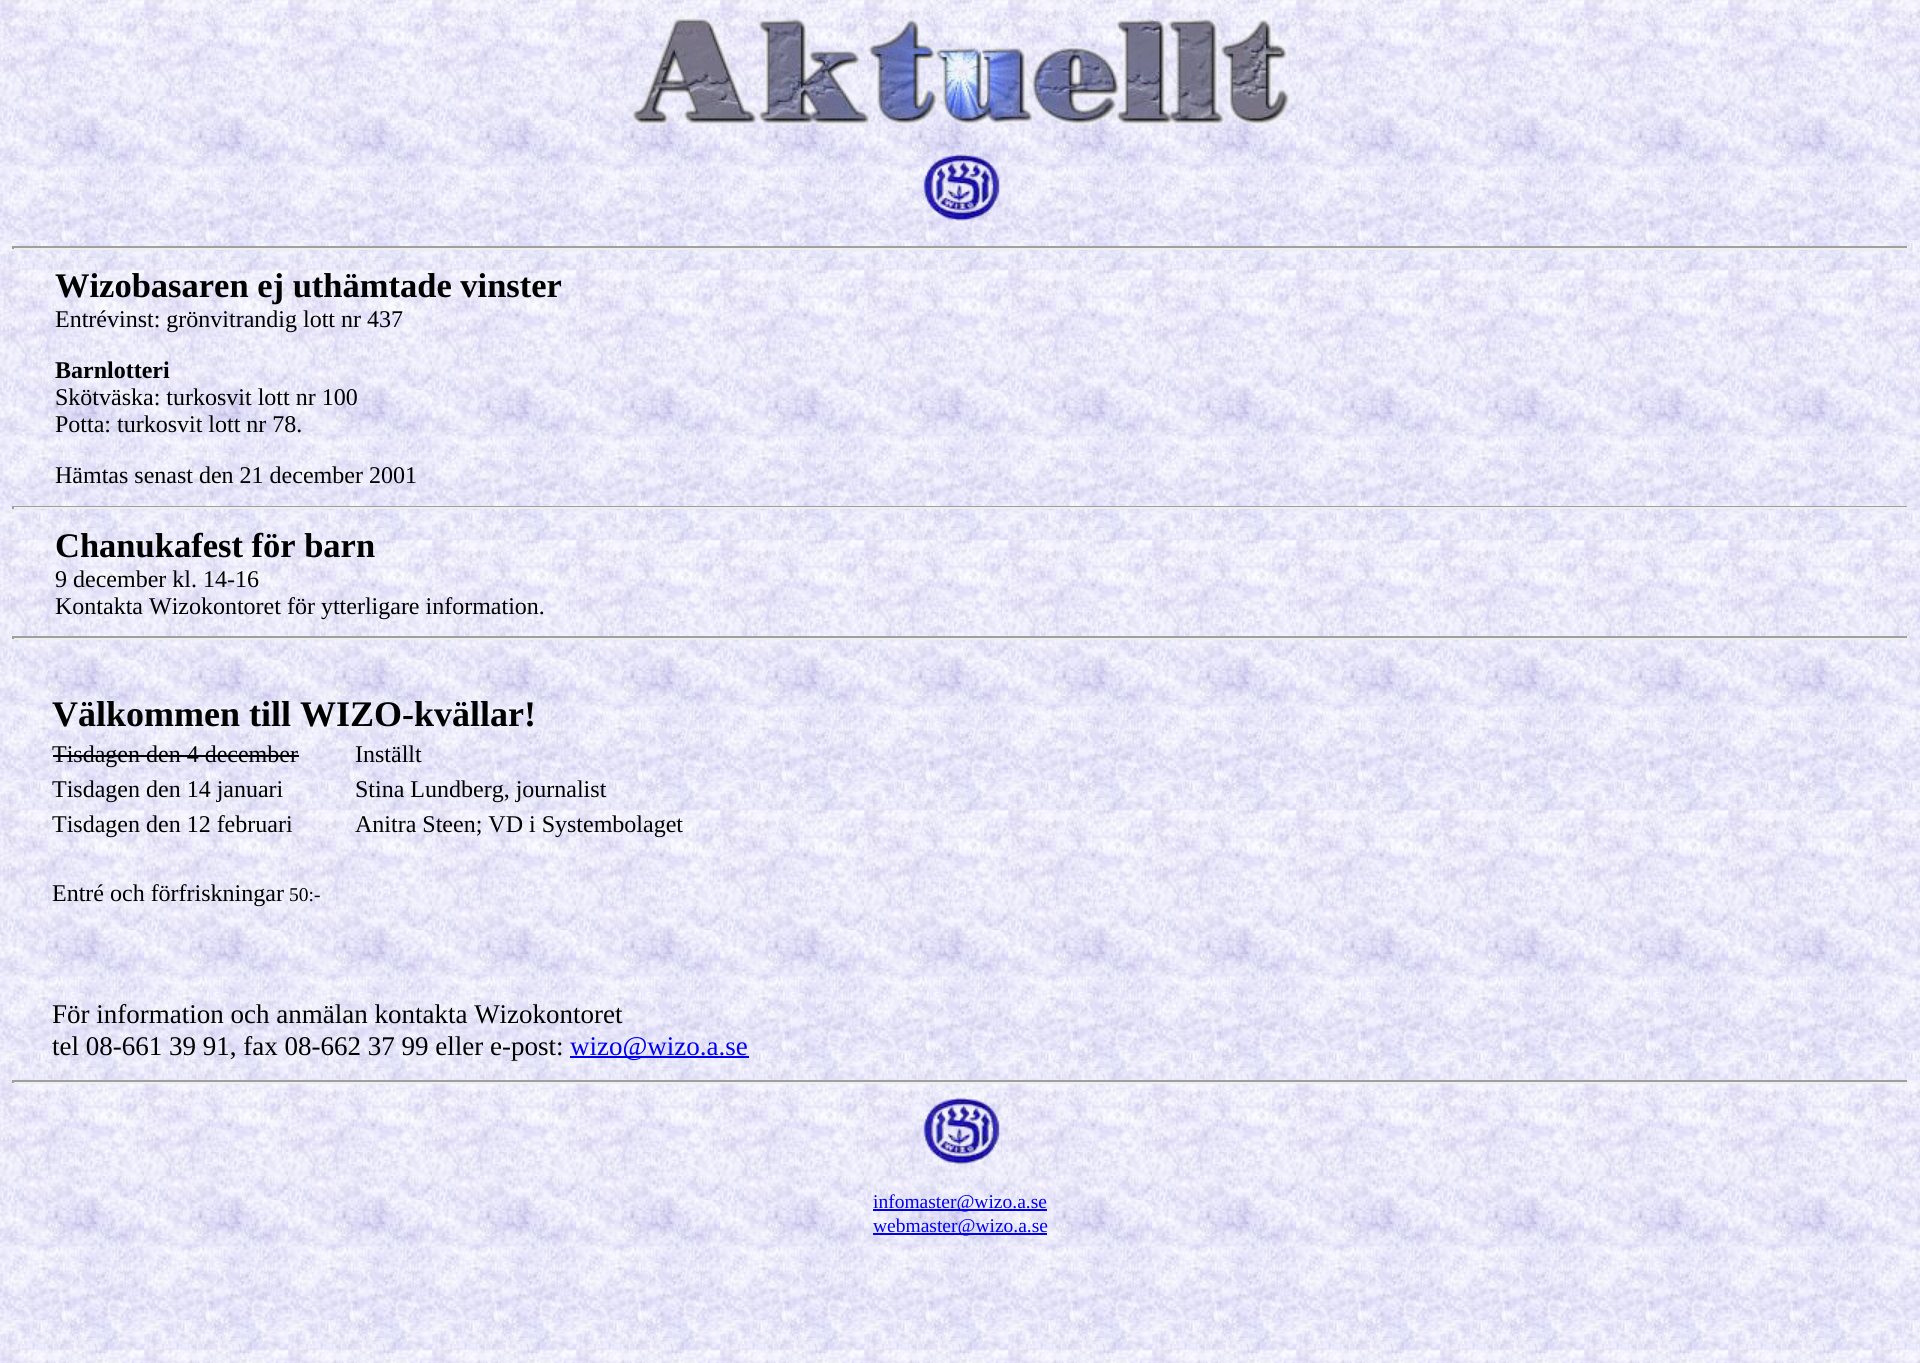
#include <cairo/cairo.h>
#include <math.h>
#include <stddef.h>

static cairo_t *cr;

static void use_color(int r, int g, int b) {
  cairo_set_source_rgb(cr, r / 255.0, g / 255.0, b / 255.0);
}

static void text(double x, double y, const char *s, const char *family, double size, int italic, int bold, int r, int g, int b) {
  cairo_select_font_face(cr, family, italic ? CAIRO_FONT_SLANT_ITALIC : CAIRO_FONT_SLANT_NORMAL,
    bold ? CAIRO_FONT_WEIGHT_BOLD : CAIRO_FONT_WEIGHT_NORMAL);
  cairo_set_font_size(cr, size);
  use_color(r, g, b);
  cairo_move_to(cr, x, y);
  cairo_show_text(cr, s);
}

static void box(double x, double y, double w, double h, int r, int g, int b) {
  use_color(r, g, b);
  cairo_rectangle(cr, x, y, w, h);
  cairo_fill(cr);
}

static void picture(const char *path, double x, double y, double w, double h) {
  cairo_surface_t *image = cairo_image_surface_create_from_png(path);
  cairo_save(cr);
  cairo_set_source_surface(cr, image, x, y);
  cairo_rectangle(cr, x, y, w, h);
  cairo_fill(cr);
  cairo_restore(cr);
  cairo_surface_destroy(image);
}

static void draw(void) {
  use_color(255, 255, 255);
  cairo_paint(cr);
  picture("img_01.png", 0, 0, 1920, 1363);
  picture("img_02.png", 631, 18, 658, 107);
  picture("img_03.png", 923, 154, 77, 67);
  box(12, 246, 1896, 2, 159, 159, 159);
  box(1907, 246, 2, 3, 238, 238, 238);
  box(12, 248, 1896, 2, 238, 238, 238);
  box(12, 246, 2, 3, 159, 159, 159);
  box(12, 506, 1896, 1, 159, 159, 159);
  box(1907, 506, 2, 3, 238, 238, 238);
  box(12, 507, 1896, 2, 238, 238, 238);
  box(12, 506, 2, 3, 159, 159, 159);
  box(12, 636, 1896, 2, 159, 159, 159);
  box(1907, 636, 2, 3, 238, 238, 238);
  box(12, 638, 1896, 2, 238, 238, 238);
  box(12, 636, 2, 3, 159, 159, 159);
  box(53, 755, 246, 2, 0, 0, 0);
  box(570, 1056, 179, 2, 0, 0, 238);
  box(12, 1080, 1896, 2, 159, 159, 159);
  box(1907, 1080, 2, 3, 238, 238, 238);
  box(12, 1082, 1896, 2, 238, 238, 238);
  box(12, 1080, 2, 3, 159, 159, 159);
  picture("img_04.png", 923, 1097, 77, 68);
  box(873, 1209, 174, 2, 0, 0, 238);
  box(873, 1233, 174, 2, 0, 0, 238);
  text(55, 297, "Wizobasaren ej uthämtade vinster", "Liberation Serif", 34.5, 0, 1, 0, 0, 0);
  text(55, 327, "Entrévinst: grönvitrandig lott nr 437", "Liberation Serif", 24, 0, 0, 0, 0, 0);
  text(55, 378, "Barnlotteri", "Liberation Serif", 24, 0, 1, 0, 0, 0);
  text(55, 405, "Skötväska: turkosvit lott nr 100", "Liberation Serif", 24, 0, 0, 0, 0, 0);
  text(55, 432, "Potta: turkosvit lott nr 78.", "Liberation Serif", 24, 0, 0, 0, 0, 0);
  text(55, 483, "Hämtas senast den 21 december 2001", "Liberation Serif", 24, 0, 0, 0, 0, 0);
  text(55, 557, "Chanukafest för barn", "Liberation Serif", 34.5, 0, 1, 0, 0, 0);
  text(55, 587, "9 december kl. 14-16", "Liberation Serif", 24, 0, 0, 0, 0, 0);
  text(55, 614, "Kontakta Wizokontoret för ytterligare information.", "Liberation Serif", 24, 0, 0, 0, 0, 0);
  text(52, 726, "Välkommen till WIZO-kvällar!", "Liberation Serif", 36, 0, 1, 0, 0, 0);
  text(52, 762, "Tisdagen den 4 december", "Liberation Serif", 24, 0, 0, 0, 0, 0);
  text(355, 762, "Inställt", "Liberation Serif", 24, 0, 0, 0, 0, 0);
  text(52, 797, "Tisdagen den 14 januari", "Liberation Serif", 24, 0, 0, 0, 0, 0);
  text(355, 797, "Stina Lundberg, journalist", "Liberation Serif", 24, 0, 0, 0, 0, 0);
  text(52, 832, "Tisdagen den 12 februari", "Liberation Serif", 24, 0, 0, 0, 0, 0);
  text(355, 832, "Anitra Steen; VD i Systembolaget", "Liberation Serif", 24, 0, 0, 0, 0, 0);
  text(52, 901, "Entré och förfriskningar", "Liberation Serif", 24, 0, 0, 0, 0, 0);
  text(289, 901, "50:-", "Liberation Serif", 19.5, 0, 0, 0, 0, 0);
  text(52, 1023, "För information och anmälan kontakta Wizokontoret", "Liberation Serif", 27, 0, 0, 0, 0, 0);
  text(52, 1055, "tel 08-661 39 91, fax 08-662 37 99 eller e-post:", "Liberation Serif", 27, 0, 0, 0, 0, 0);
  text(570, 1055, "wizo@wizo.a.se", "Liberation Serif", 27, 0, 0, 0, 0, 238);
  text(873, 1208, "infomaster@wizo.a.se", "Liberation Serif", 19.5, 0, 0, 0, 0, 238);
  text(873, 1232, "webmaster@wizo.a.se", "Liberation Serif", 19.5, 0, 0, 0, 0, 238);
}

int main(void) {
  cairo_surface_t *surface = cairo_image_surface_create(CAIRO_FORMAT_RGB24, 1920, 1363);
  cr = cairo_create(surface);
  cairo_font_options_t *options = cairo_font_options_create();
  cairo_font_options_set_hint_metrics(options, CAIRO_HINT_METRICS_OFF);
  cairo_font_options_set_hint_style(options, CAIRO_HINT_STYLE_NONE);
  cairo_set_font_options(cr, options);
  cairo_set_miter_limit(cr, 4);
  draw();
  cairo_surface_write_to_png(surface, "out.png");
  cairo_font_options_destroy(options);
  cairo_destroy(cr);
  cairo_surface_destroy(surface);
  return 0;
}
